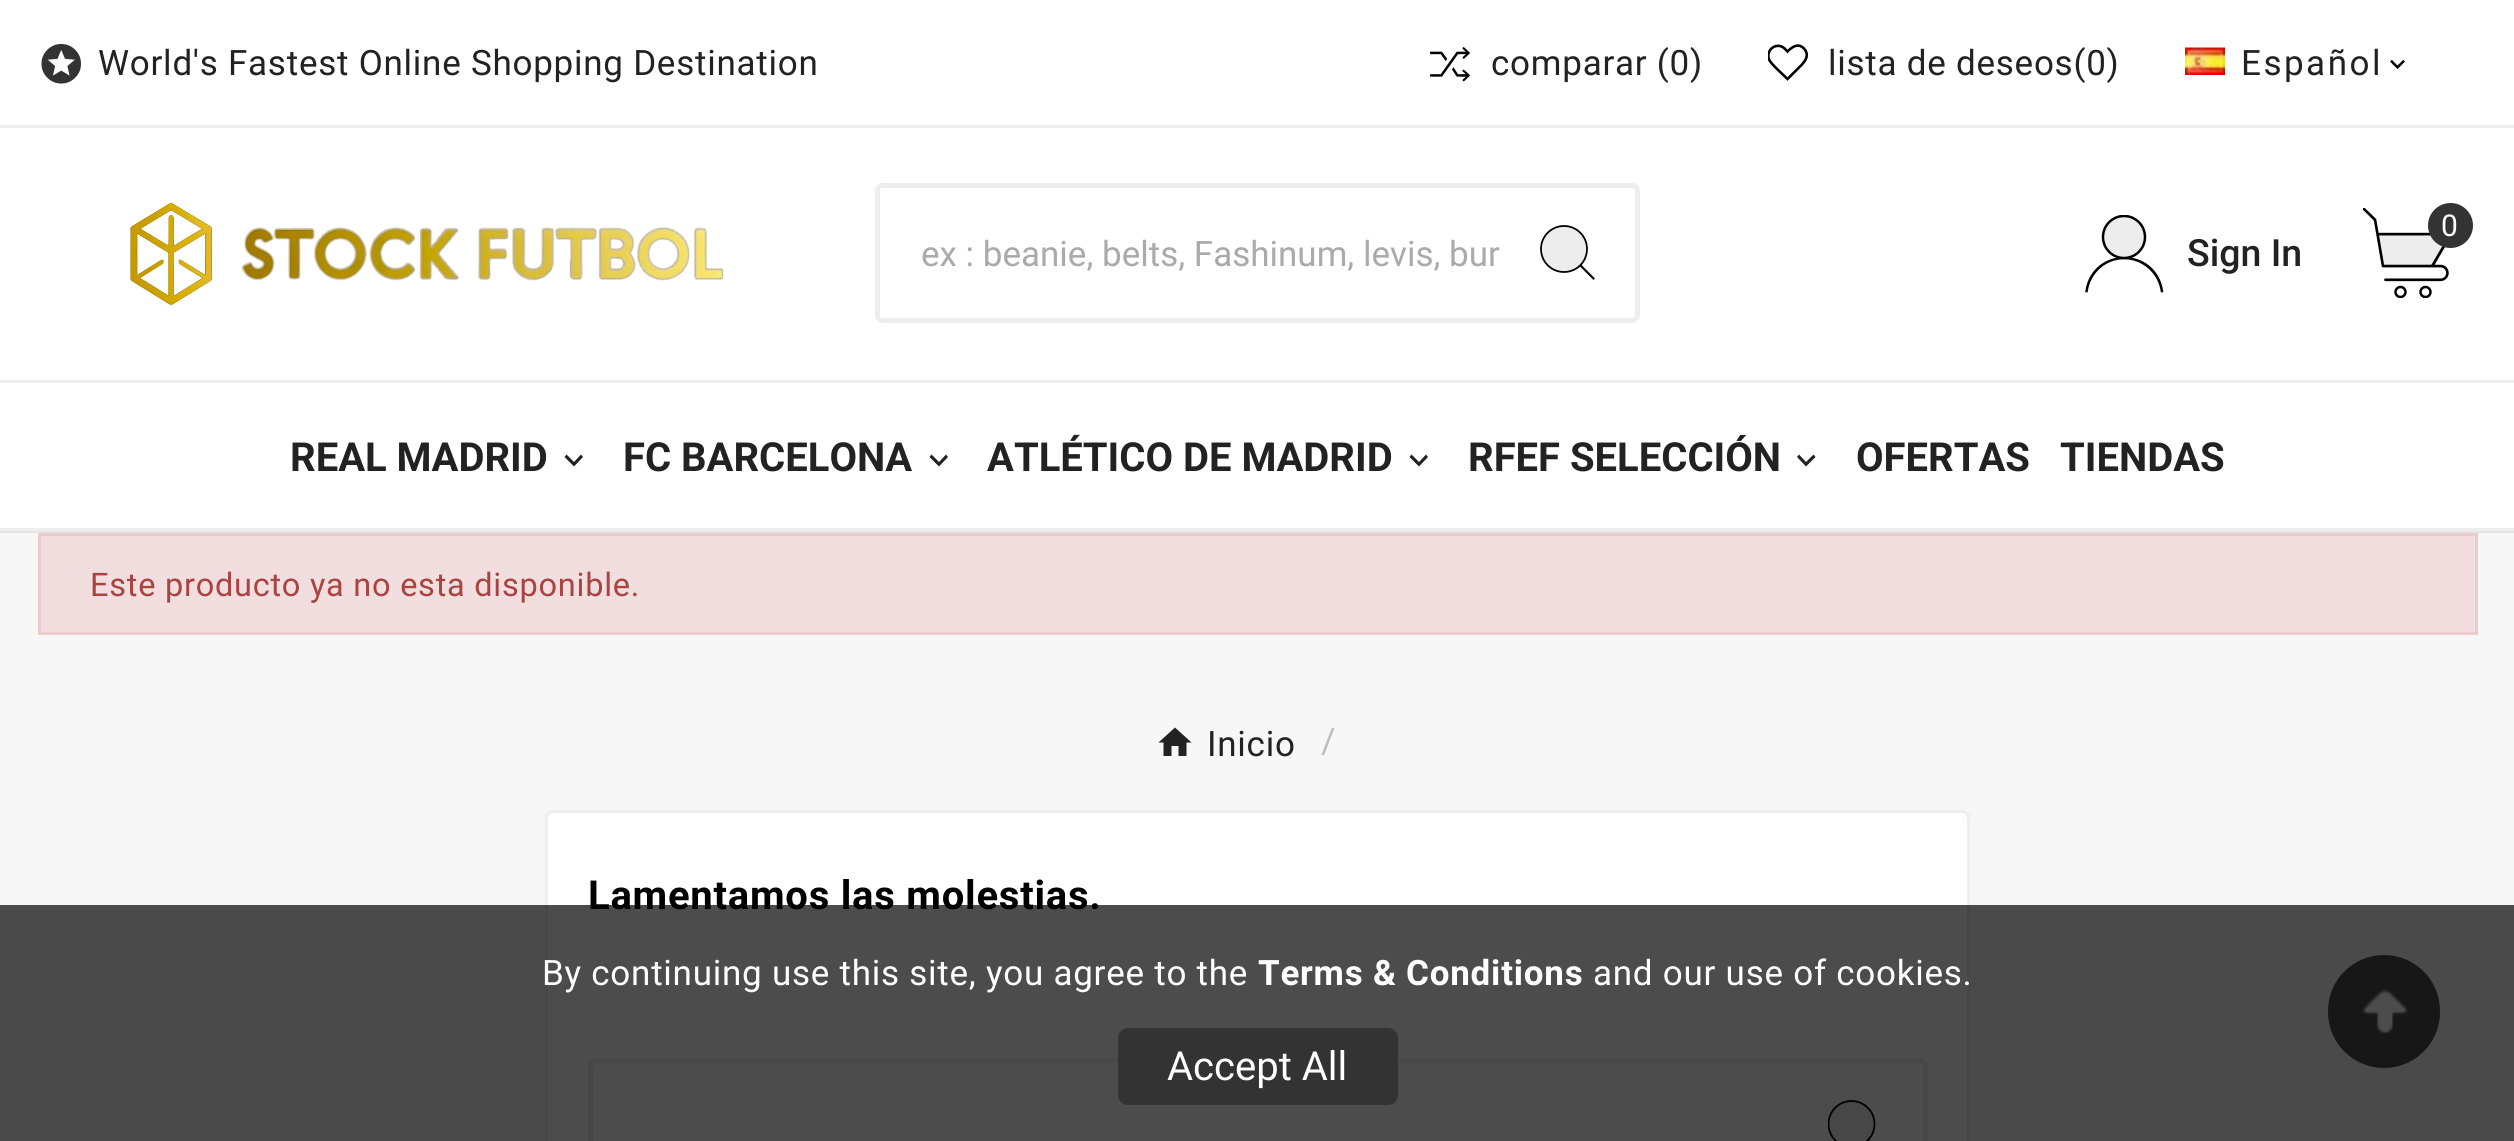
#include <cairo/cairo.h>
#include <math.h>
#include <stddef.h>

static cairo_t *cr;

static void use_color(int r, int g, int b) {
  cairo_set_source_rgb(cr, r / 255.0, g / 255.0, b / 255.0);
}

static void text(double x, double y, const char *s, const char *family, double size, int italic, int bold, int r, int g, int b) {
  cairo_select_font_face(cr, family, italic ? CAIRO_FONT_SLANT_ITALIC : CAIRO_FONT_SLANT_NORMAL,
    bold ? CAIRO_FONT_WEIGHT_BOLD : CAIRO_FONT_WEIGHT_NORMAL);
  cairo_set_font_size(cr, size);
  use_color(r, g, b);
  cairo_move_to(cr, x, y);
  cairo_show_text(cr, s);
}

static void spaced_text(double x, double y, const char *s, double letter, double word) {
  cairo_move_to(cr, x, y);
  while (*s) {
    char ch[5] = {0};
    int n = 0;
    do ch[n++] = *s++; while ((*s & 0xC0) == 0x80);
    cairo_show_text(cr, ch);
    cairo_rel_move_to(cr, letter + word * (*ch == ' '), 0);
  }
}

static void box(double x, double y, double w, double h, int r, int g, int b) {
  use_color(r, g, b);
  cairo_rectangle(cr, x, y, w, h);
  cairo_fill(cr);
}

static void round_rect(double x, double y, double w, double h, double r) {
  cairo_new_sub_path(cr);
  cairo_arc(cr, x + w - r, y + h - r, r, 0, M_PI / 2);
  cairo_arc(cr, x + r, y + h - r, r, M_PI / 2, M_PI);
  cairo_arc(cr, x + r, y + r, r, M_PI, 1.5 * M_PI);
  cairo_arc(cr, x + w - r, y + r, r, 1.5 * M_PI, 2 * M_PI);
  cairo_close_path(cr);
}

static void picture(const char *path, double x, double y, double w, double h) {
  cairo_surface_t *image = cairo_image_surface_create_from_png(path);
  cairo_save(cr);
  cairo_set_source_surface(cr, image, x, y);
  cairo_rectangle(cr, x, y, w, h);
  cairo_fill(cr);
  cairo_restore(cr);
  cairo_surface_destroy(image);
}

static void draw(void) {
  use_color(247, 247, 247);
  cairo_paint(cr);
  box(0, 0, 2514, 528, 255, 255, 255);
  box(0, 531, 2514, 2, 229, 229, 229);
  box(0, 125, 2514, 3, 238, 238, 238);
  picture("img_01.png", 41, 44, 40, 40);
  picture("img_02.png", 1430, 47, 40, 35);
  cairo_save(cr);
  cairo_rectangle(cr, 1768, 43, 40, 40);
  cairo_clip(cr);
  cairo_new_path(cr);
  cairo_move_to(cr, 1804, 48.5);
  cairo_curve_to(cr, 1798, 42.5, 1792, 47, 1787.5, 51.5);
  cairo_curve_to(cr, 1785.5, 49.5, 1784, 47.5, 1781.5, 46.5);
  cairo_curve_to(cr, 1773.5, 43.5, 1766, 51.5, 1769, 59.5);
  cairo_curve_to(cr, 1771, 64, 1783.5, 75, 1787.5, 79);
  cairo_line_to(cr, 1796.5, 70);
  cairo_curve_to(cr, 1802, 64.5, 1811.5, 57, 1804, 48.5);
  cairo_close_path(cr);
  use_color(0, 0, 0);
  cairo_set_line_width(cr, 2.6);
  cairo_stroke(cr);
  cairo_restore(cr);
  picture("img_03.png", 2185, 47, 40, 28);
  picture("img_04.png", 2390, 59, 15, 10);
  picture("img_05.png", 130, 202, 594, 103);
  round_rect(877.5, 185.5, 760, 135, 5.5);
  cairo_set_line_width(cr, 5);
  cairo_stroke(cr);
  use_color(255, 255, 255);
  cairo_new_path(cr);
  cairo_move_to(cr, 882.5, 188);
  cairo_line_to(cr, 1500, 188);
  cairo_line_to(cr, 1500, 318);
  cairo_line_to(cr, 882.5, 318);
  cairo_curve_to(cr, 881, 318, 880, 317, 880, 315.5);
  cairo_line_to(cr, 880, 190.5);
  cairo_curve_to(cr, 880, 189, 881, 188, 882.5, 188);
  cairo_close_path(cr);
  cairo_fill(cr);
  cairo_new_path(cr);
  cairo_move_to(cr, 1500, 188);
  cairo_line_to(cr, 1632.5, 188);
  cairo_curve_to(cr, 1634, 188, 1635, 189, 1635, 190.5);
  cairo_line_to(cr, 1635, 315.5);
  cairo_curve_to(cr, 1635, 317, 1634, 318, 1632.5, 318);
  cairo_line_to(cr, 1500, 318);
  cairo_close_path(cr);
  cairo_fill(cr);
  use_color(0, 0, 0);
  cairo_new_path(cr);
  cairo_move_to(cr, 1593.5, 280);
  cairo_line_to(cr, 1579.5, 266);
  cairo_line_to(cr, 1581, 264.5);
  cairo_line_to(cr, 1595, 278.5);
  cairo_close_path(cr);
  cairo_fill(cr);
  use_color(237, 237, 237);
  cairo_arc(cr, 1564, 249, 22, 0, 2 * M_PI);
  cairo_fill(cr);
  cairo_arc(cr, 1564, 249, 23, 0, 2 * M_PI);
  use_color(0, 0, 0);
  cairo_set_line_width(cr, 1.8);
  cairo_stroke(cr);
  picture("img_06.png", 2363, 208, 86, 90);
  use_color(51, 51, 51);
  cairo_arc(cr, 2450.5, 225.5, 22.5, 0, 2 * M_PI);
  cairo_fill(cr);
  cairo_new_path(cr);
  cairo_move_to(cr, 2124, 258.5);
  cairo_curve_to(cr, 2143, 258.5, 2159, 273, 2161.5, 291.5);
  cairo_line_to(cr, 2162.5, 291.5);
  cairo_curve_to(cr, 2156, 246.5, 2092.5, 246.5, 2086, 291.5);
  cairo_line_to(cr, 2087, 291.5);
  cairo_curve_to(cr, 2089.5, 273, 2105, 258.5, 2124, 258.5);
  cairo_close_path(cr);
  use_color(0, 0, 0);
  cairo_set_line_width(cr, 1.5);
  cairo_stroke(cr);
  use_color(237, 237, 237);
  cairo_new_path(cr);
  cairo_move_to(cr, 2124, 257);
  cairo_curve_to(cr, 2098, 257, 2098, 217, 2124, 217);
  cairo_curve_to(cr, 2151, 217, 2151, 257, 2124, 257);
  cairo_fill(cr);
  cairo_save(cr);
  cairo_rectangle(cr, 2085, 215, 78, 78);
  cairo_clip(cr);
  cairo_arc(cr, 2124, 237, 21, 0, 2 * M_PI);
  use_color(0, 0, 0);
  cairo_set_line_width(cr, 2.5);
  cairo_stroke(cr);
  cairo_restore(cr);
  box(0, 380, 2514, 3, 238, 238, 238);
  box(0, 528, 2514, 3, 238, 238, 238);
  use_color(34, 34, 34);
  cairo_new_path(cr);
  cairo_move_to(cr, 566.5, 454.5);
  cairo_line_to(cr, 574, 462);
  cairo_line_to(cr, 581, 454.5);
  cairo_line_to(cr, 583, 457);
  cairo_line_to(cr, 574, 466.5);
  cairo_line_to(cr, 564.5, 457);
  cairo_close_path(cr);
  cairo_fill(cr);
  cairo_new_path(cr);
  cairo_move_to(cr, 931.5, 454.5);
  cairo_line_to(cr, 939, 462);
  cairo_line_to(cr, 946, 454.5);
  cairo_line_to(cr, 948, 457);
  cairo_line_to(cr, 939, 466.5);
  cairo_line_to(cr, 929.5, 457);
  cairo_close_path(cr);
  cairo_fill(cr);
  cairo_new_path(cr);
  cairo_move_to(cr, 1411.5, 454.5);
  cairo_line_to(cr, 1419, 462);
  cairo_line_to(cr, 1426, 454.5);
  cairo_line_to(cr, 1428, 457);
  cairo_line_to(cr, 1419, 466.5);
  cairo_line_to(cr, 1409.5, 457);
  cairo_close_path(cr);
  cairo_fill(cr);
  cairo_new_path(cr);
  cairo_move_to(cr, 1799, 454.5);
  cairo_line_to(cr, 1806, 462);
  cairo_line_to(cr, 1813.5, 454.5);
  cairo_line_to(cr, 1815.5, 457);
  cairo_line_to(cr, 1806, 466.5);
  cairo_line_to(cr, 1797, 457);
  cairo_close_path(cr);
  cairo_fill(cr);
  use_color(242, 222, 222);
  cairo_rectangle(cr, 39.5, 534.5, 2437, 99);
  cairo_fill_preserve(cr);
  use_color(235, 204, 204);
  cairo_set_line_width(cr, 3);
  cairo_stroke(cr);
  use_color(35, 35, 35);
  cairo_new_path(cr);
  cairo_move_to(cr, 1171.5, 756);
  cairo_line_to(cr, 1163.5, 756);
  cairo_line_to(cr, 1163.5, 742.5);
  cairo_line_to(cr, 1158.5, 742.5);
  cairo_line_to(cr, 1175, 727.5);
  cairo_line_to(cr, 1191.5, 742.5);
  cairo_line_to(cr, 1186.5, 742.5);
  cairo_line_to(cr, 1186.5, 756);
  cairo_line_to(cr, 1178.5, 756);
  cairo_line_to(cr, 1178.5, 746);
  cairo_line_to(cr, 1171.5, 746);
  cairo_close_path(cr);
  cairo_fill(cr);
  use_color(255, 255, 255);
  round_rect(546.5, 811.5, 1422, 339, 6.5);
  cairo_fill_preserve(cr);
  use_color(238, 238, 238);
  cairo_stroke(cr);
  round_rect(590.5, 1060.5, 1335, 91, 5.5);
  cairo_set_line_width(cr, 5);
  cairo_stroke(cr);
  use_color(255, 255, 255);
  cairo_new_path(cr);
  cairo_move_to(cr, 595.5, 1063);
  cairo_line_to(cr, 1788, 1063);
  cairo_line_to(cr, 1788, 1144);
  cairo_line_to(cr, 595.5, 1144);
  cairo_curve_to(cr, 594, 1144, 593, 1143, 593, 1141.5);
  cairo_line_to(cr, 593, 1065.5);
  cairo_curve_to(cr, 593, 1064, 594, 1063, 595.5, 1063);
  cairo_close_path(cr);
  cairo_fill(cr);
  cairo_new_path(cr);
  cairo_move_to(cr, 1788, 1063);
  cairo_line_to(cr, 1920.5, 1063);
  cairo_curve_to(cr, 1922, 1063, 1923, 1064, 1923, 1065.5);
  cairo_line_to(cr, 1923, 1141.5);
  cairo_curve_to(cr, 1923, 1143, 1922, 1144, 1920.5, 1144);
  cairo_line_to(cr, 1788, 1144);
  cairo_close_path(cr);
  cairo_fill(cr);
  use_color(0, 0, 0);
  cairo_new_path(cr);
  cairo_move_to(cr, 1881, 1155);
  cairo_line_to(cr, 1867, 1141);
  cairo_line_to(cr, 1868.5, 1139.5);
  cairo_line_to(cr, 1882.5, 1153.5);
  cairo_close_path(cr);
  cairo_fill(cr);
  use_color(237, 237, 237);
  cairo_arc(cr, 1851.5, 1124, 22, 0, 2 * M_PI);
  cairo_fill(cr);
  cairo_save(cr);
  cairo_rectangle(cr, 1828, 1100, 55, 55);
  cairo_clip(cr);
  cairo_arc(cr, 1851.5, 1124, 23, 0, 2 * M_PI);
  use_color(0, 0, 0);
  cairo_set_line_width(cr, 1.8);
  cairo_stroke(cr);
  cairo_restore(cr);
  use_color(76, 76, 76);
  round_rect(2328, 955, 112, 113, 56);
  cairo_fill(cr);
  picture("img_07.png", 2362, 989, 47, 45);
  cairo_select_font_face(cr, "Roboto", CAIRO_FONT_SLANT_NORMAL, CAIRO_FONT_WEIGHT_NORMAL);
  cairo_set_font_size(cr, 35);
  use_color(34, 34, 34);
  spaced_text(98, 75, "World's Fastest Online Shopping Destination", 0.75, 0);
  spaced_text(1491, 75, "comparar (0)", 0.75, 0);
  spaced_text(1828, 75, "lista de deseos(0)", 0.75, 0);
  spaced_text(2241, 75, "Español", 2.5, 0);
  text(921, 266, "ex : beanie, belts, Fashinum, levis, bur", "Roboto", 35, 0, 0, 170, 170, 170);
  cairo_set_font_size(cr, 30);
  use_color(255, 255, 255);
  spaced_text(2441, 236, "0", 0.75, 0);
  text(2187, 266, "Sign In", "Roboto Medium", 37.5, 0, 0, 34, 34, 34);
  text(290, 471, "REAL MADRID", "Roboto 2", 40, 0, 1, 34, 34, 34);
  text(623, 471, "FC BARCELONA", "Roboto 2", 40, 0, 1, 34, 34, 34);
  text(987, 471, "ATLÉTICO DE MADRID", "Roboto 2", 40, 0, 1, 34, 34, 34);
  text(1468, 471, "RFEF SELECCIÓN", "Roboto 2", 40, 0, 1, 34, 34, 34);
  text(1856, 471, "OFERTAS", "Roboto 2", 40, 0, 1, 34, 34, 34);
  text(2060, 471, "TIENDAS", "Roboto 2", 40, 0, 1, 34, 34, 34);
  cairo_select_font_face(cr, "Roboto", CAIRO_FONT_SLANT_NORMAL, CAIRO_FONT_WEIGHT_NORMAL);
  cairo_set_font_size(cr, 32.5);
  use_color(169, 68, 66);
  spaced_text(90, 596, "Este producto ya no esta disponible.", 0.75, 0);
  cairo_set_font_size(cr, 35);
  use_color(34, 34, 34);
  spaced_text(1207, 756, "Inicio", 0.75, 0);
  use_color(189, 189, 189);
  spaced_text(1321, 753, "/", 0.75, 0);
  cairo_select_font_face(cr, "Roboto", CAIRO_FONT_SLANT_NORMAL, CAIRO_FONT_WEIGHT_BOLD);
  cairo_set_font_size(cr, 40);
  use_color(0, 0, 0);
  spaced_text(588, 909, "Lamentamos las molestias.", 0.75, 0);
  cairo_set_source_rgba(cr, 0, 0, 0, 0.7);
  cairo_rectangle(cr, 0, 905, 2514, 236);
  cairo_fill(cr);
  cairo_select_font_face(cr, "Roboto", CAIRO_FONT_SLANT_NORMAL, CAIRO_FONT_WEIGHT_NORMAL);
  cairo_set_font_size(cr, 35);
  use_color(255, 255, 255);
  spaced_text(542, 985, "By continuing use this site, you agree to the", 0.75, 0);
  cairo_select_font_face(cr, "Roboto", CAIRO_FONT_SLANT_NORMAL, CAIRO_FONT_WEIGHT_BOLD);
  spaced_text(1258, 985, "Terms & Conditions", 0.75, 0);
  cairo_select_font_face(cr, "Roboto", CAIRO_FONT_SLANT_NORMAL, CAIRO_FONT_WEIGHT_NORMAL);
  spaced_text(1593, 985, "and our use of cookies.", 0.75, 0);
  use_color(51, 51, 51);
  round_rect(1118, 1028, 280, 77, 10);
  cairo_fill(cr);
  text(1167, 1080, "Accept All", "Roboto", 40, 0, 0, 255, 255, 255);
}

int main(void) {
  cairo_surface_t *surface = cairo_image_surface_create(CAIRO_FORMAT_RGB24, 2514, 1141);
  cr = cairo_create(surface);
  cairo_font_options_t *options = cairo_font_options_create();
  cairo_font_options_set_hint_metrics(options, CAIRO_HINT_METRICS_OFF);
  cairo_font_options_set_hint_style(options, CAIRO_HINT_STYLE_NONE);
  cairo_set_font_options(cr, options);
  cairo_set_miter_limit(cr, 4);
  draw();
  cairo_surface_write_to_png(surface, "out.png");
  cairo_font_options_destroy(options);
  cairo_destroy(cr);
  cairo_surface_destroy(surface);
  return 0;
}
